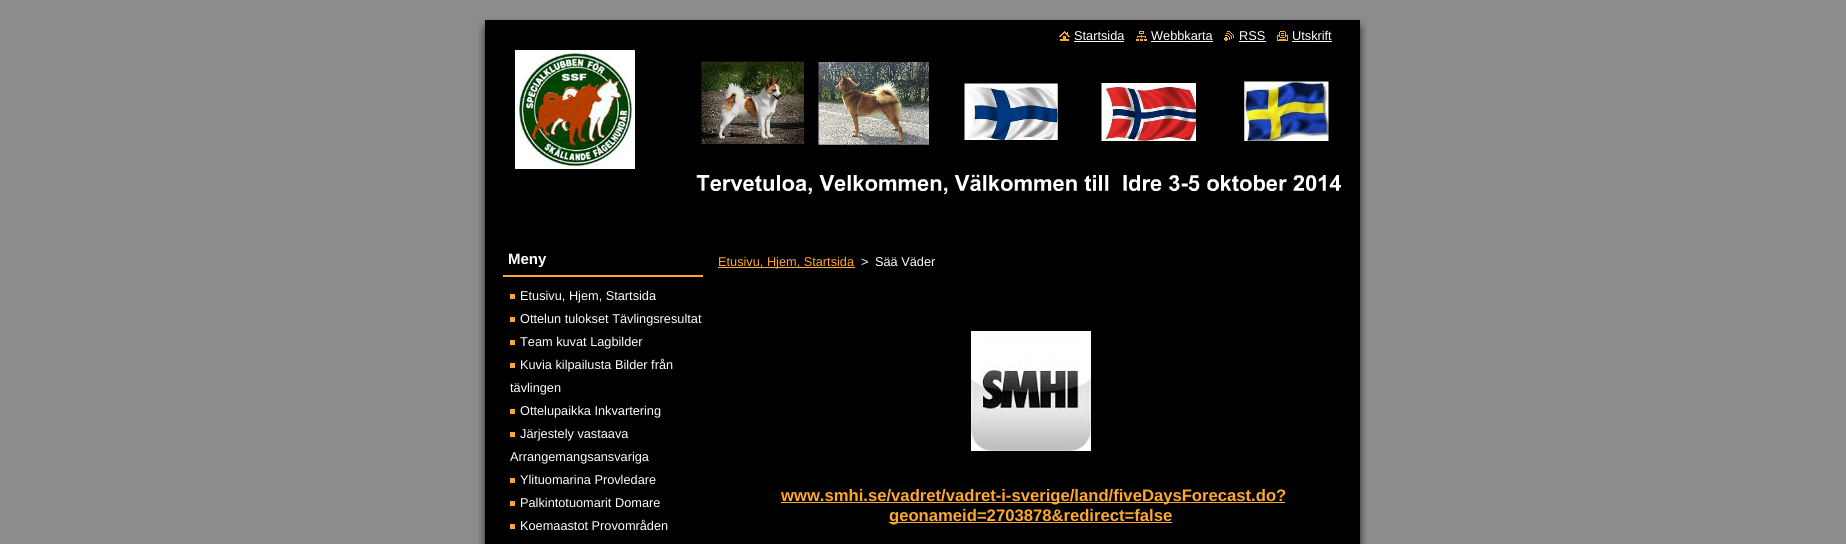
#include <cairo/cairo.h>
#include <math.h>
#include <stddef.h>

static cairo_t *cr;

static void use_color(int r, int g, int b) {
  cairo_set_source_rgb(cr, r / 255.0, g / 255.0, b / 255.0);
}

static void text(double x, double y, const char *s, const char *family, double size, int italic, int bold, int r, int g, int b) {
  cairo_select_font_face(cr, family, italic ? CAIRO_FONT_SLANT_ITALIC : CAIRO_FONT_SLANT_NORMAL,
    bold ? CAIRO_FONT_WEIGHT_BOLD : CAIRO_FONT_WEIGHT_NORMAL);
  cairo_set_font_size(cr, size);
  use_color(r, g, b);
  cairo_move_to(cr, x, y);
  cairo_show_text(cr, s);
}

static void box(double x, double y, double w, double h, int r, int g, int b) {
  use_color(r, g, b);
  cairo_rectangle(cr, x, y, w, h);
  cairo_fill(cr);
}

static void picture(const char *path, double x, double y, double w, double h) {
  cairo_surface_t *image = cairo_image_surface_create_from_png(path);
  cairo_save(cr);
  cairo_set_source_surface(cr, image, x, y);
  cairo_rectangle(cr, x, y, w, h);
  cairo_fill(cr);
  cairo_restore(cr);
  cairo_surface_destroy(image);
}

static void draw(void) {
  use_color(140, 140, 140);
  cairo_paint(cr);
  picture("img_01.png", 478, 31, 889, 506);
  picture("img_02.png", 478, 15, 889, 16);
  picture("img_03.png", 478, 537, 889, 7);
  picture("img_04.png", 1059, 31, 11, 10);
  box(1074, 41, 50, 1, 255, 255, 255);
  picture("img_05.png", 1136, 31, 11, 10);
  box(1151, 41, 62, 1, 255, 255, 255);
  picture("img_06.png", 1224, 31, 10, 10);
  box(1239, 41, 27, 1, 255, 255, 255);
  picture("img_07.png", 1277, 31, 11, 10);
  box(1292, 41, 40, 1, 255, 255, 255);
  picture("img_08.png", 515, 50, 826, 145);
  box(503, 275, 200, 2, 255, 168, 44);
  box(510, 294, 5, 5, 255, 168, 45);
  box(510, 317, 5, 5, 255, 168, 45);
  box(510, 340, 5, 5, 255, 168, 45);
  box(510, 363, 5, 5, 255, 168, 45);
  box(510, 409, 5, 5, 255, 168, 45);
  box(510, 432, 5, 5, 255, 168, 45);
  box(510, 478, 5, 5, 255, 168, 45);
  box(510, 501, 5, 5, 255, 168, 45);
  box(510, 524, 5, 5, 255, 168, 45);
  box(718, 267, 137, 1, 255, 168, 44);
  picture("img_09.png", 971, 331, 120, 120);
  box(781, 502, 504, 1, 255, 168, 44);
  box(889, 522, 283, 1, 255, 168, 44);
  text(1074, 40, "Startsida", "Liberation Sans", 12.75, 0, 0, 255, 255, 255);
  text(1151, 40, "Webbkarta", "Liberation Sans", 12.75, 0, 0, 255, 255, 255);
  text(1239, 40, "RSS", "Liberation Sans", 12.75, 0, 0, 255, 255, 255);
  text(1292, 40, "Utskrift", "Liberation Sans", 12.75, 0, 0, 255, 255, 255);
  text(508, 264, "Meny", "Liberation Sans", 15, 0, 1, 255, 255, 255);
  text(520, 300, "Etusivu, Hjem, Startsida", "Liberation Sans", 12.75, 0, 0, 255, 255, 255);
  text(520, 323, "Ottelun tulokset Tävlingsresultat", "Liberation Sans", 12.75, 0, 0, 255, 255, 255);
  text(520, 346, "Team kuvat Lagbilder", "Liberation Sans", 12.75, 0, 0, 255, 255, 255);
  text(520, 369, "Kuvia kilpailusta Bilder från", "Liberation Sans", 12.75, 0, 0, 255, 255, 255);
  text(510, 392, "tävlingen", "Liberation Sans", 12.75, 0, 0, 255, 255, 255);
  text(520, 415, "Ottelupaikka Inkvartering", "Liberation Sans", 12.75, 0, 0, 255, 255, 255);
  text(520, 438, "Järjestely vastaava", "Liberation Sans", 12.75, 0, 0, 255, 255, 255);
  text(510, 461, "Arrangemangsansvariga", "Liberation Sans", 12.75, 0, 0, 255, 255, 255);
  text(520, 484, "Ylituomarina Provledare", "Liberation Sans", 12.75, 0, 0, 255, 255, 255);
  text(520, 507, "Palkintotuomarit Domare", "Liberation Sans", 12.75, 0, 0, 255, 255, 255);
  text(520, 530, "Koemaastot Provområden", "Liberation Sans", 12.75, 0, 0, 255, 255, 255);
  text(718, 266, "Etusivu, Hjem, Startsida", "Liberation Sans", 12.75, 0, 0, 255, 168, 44);
  text(861, 266, ">", "Liberation Sans", 12.75, 0, 0, 255, 255, 255);
  text(875, 266, "Sää Väder", "Liberation Sans", 12.75, 0, 0, 255, 255, 255);
  text(781, 501, "www.smhi.se/vadret/vadret-i-sverige/land/fiveDaysForecast.do?", "Liberation Sans", 16.65, 0, 1, 255, 168, 44);
  text(889, 521, "geonameid=2703878&redirect=false", "Liberation Sans", 16.65, 0, 1, 255, 168, 44);
}

int main(void) {
  cairo_surface_t *surface = cairo_image_surface_create(CAIRO_FORMAT_RGB24, 1846, 544);
  cr = cairo_create(surface);
  cairo_font_options_t *options = cairo_font_options_create();
  cairo_font_options_set_hint_metrics(options, CAIRO_HINT_METRICS_OFF);
  cairo_font_options_set_hint_style(options, CAIRO_HINT_STYLE_NONE);
  cairo_set_font_options(cr, options);
  cairo_set_miter_limit(cr, 4);
  draw();
  cairo_surface_write_to_png(surface, "out.png");
  cairo_font_options_destroy(options);
  cairo_destroy(cr);
  cairo_surface_destroy(surface);
  return 0;
}
